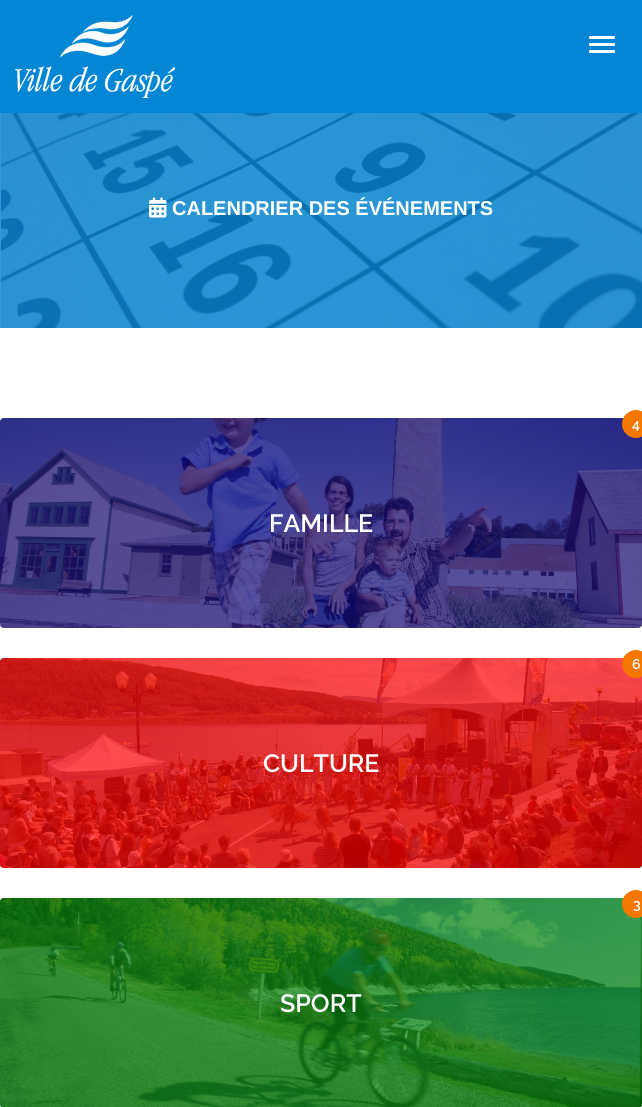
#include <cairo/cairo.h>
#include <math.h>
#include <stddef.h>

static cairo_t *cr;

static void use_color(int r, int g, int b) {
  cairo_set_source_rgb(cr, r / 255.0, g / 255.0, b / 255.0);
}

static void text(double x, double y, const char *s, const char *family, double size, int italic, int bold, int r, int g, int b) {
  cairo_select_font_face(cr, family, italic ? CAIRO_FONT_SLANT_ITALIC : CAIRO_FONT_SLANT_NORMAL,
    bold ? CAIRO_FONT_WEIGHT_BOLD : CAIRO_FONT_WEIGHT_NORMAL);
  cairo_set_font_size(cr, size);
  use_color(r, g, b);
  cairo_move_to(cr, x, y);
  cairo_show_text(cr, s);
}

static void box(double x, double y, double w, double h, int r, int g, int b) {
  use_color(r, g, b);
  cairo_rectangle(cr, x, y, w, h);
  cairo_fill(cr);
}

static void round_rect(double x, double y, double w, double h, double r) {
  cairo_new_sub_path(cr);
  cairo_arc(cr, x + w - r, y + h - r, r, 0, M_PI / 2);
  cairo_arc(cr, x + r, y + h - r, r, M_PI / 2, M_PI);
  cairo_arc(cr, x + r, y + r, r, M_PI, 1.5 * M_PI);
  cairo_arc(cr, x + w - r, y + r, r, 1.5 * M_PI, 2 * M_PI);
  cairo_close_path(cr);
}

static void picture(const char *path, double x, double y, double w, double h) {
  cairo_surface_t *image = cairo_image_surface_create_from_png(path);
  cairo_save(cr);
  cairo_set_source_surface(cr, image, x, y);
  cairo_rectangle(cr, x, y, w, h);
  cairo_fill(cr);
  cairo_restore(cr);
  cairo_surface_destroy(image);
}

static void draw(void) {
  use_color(255, 255, 255);
  cairo_paint(cr);
  box(0, 0, 642, 113, 3, 135, 213);
  picture("img_01.png", 15, 15, 160, 83);
  use_color(255, 255, 255);
  round_rect(589, 36, 26, 3, 1);
  cairo_fill(cr);
  round_rect(589, 43, 26, 3, 1);
  cairo_fill(cr);
  round_rect(589, 50, 26, 3, 1);
  cairo_fill(cr);
  picture("img_02.png", 0, 113, 642, 215);
  picture("img_03.png", 149, 197, 18, 21);
  picture("img_04.png", 0, 418, 642, 210);
  cairo_set_source_rgba(cr, 0.075, 0.039, 0.478, 0.7);
  round_rect(0, 418, 642, 210, 4);
  cairo_fill(cr);
  use_color(245, 118, 0);
  cairo_arc(cr, 636, 424, 14, 0, 2 * M_PI);
  cairo_fill(cr);
  picture("img_05.png", 0, 658, 642, 210);
  cairo_set_source_rgba(cr, 1, 0, 0, 0.7);
  round_rect(0, 658, 642, 210, 4);
  cairo_fill(cr);
  use_color(245, 118, 0);
  cairo_arc(cr, 636, 664, 14, 0, 2 * M_PI);
  cairo_fill(cr);
  picture("img_06.png", 0, 898, 642, 209);
  cairo_set_source_rgba(cr, 0, 0.51, 0.027, 0.7);
  round_rect(0, 898, 642, 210, 4);
  cairo_fill(cr);
  use_color(245, 118, 0);
  cairo_arc(cr, 636, 904, 14, 0, 2 * M_PI);
  cairo_fill(cr);
  text(172, 215, "CALENDRIER DES ÉVÉNEMENTS", "Liberation Sans", 20, 0, 1, 255, 255, 255);
  text(632, 429, "4", "Raleway SemiBold", 14, 0, 0, 255, 255, 255);
  text(269, 532, "FAMILLE", "Raleway SemiBold", 25, 0, 0, 255, 255, 255);
  text(632, 669, "6", "Raleway SemiBold", 14, 0, 0, 255, 255, 255);
  text(263, 772, "CULTURE", "Raleway SemiBold", 25, 0, 0, 255, 255, 255);
  text(633, 909, "3", "Raleway SemiBold", 14, 0, 0, 255, 255, 255);
  text(280, 1012, "SPORT", "Raleway SemiBold", 25, 0, 0, 255, 255, 255);
}

int main(void) {
  cairo_surface_t *surface = cairo_image_surface_create(CAIRO_FORMAT_RGB24, 642, 1107);
  cr = cairo_create(surface);
  cairo_font_options_t *options = cairo_font_options_create();
  cairo_font_options_set_hint_metrics(options, CAIRO_HINT_METRICS_OFF);
  cairo_font_options_set_hint_style(options, CAIRO_HINT_STYLE_NONE);
  cairo_set_font_options(cr, options);
  cairo_set_miter_limit(cr, 4);
  draw();
  cairo_surface_write_to_png(surface, "out.png");
  cairo_font_options_destroy(options);
  cairo_destroy(cr);
  cairo_surface_destroy(surface);
  return 0;
}
